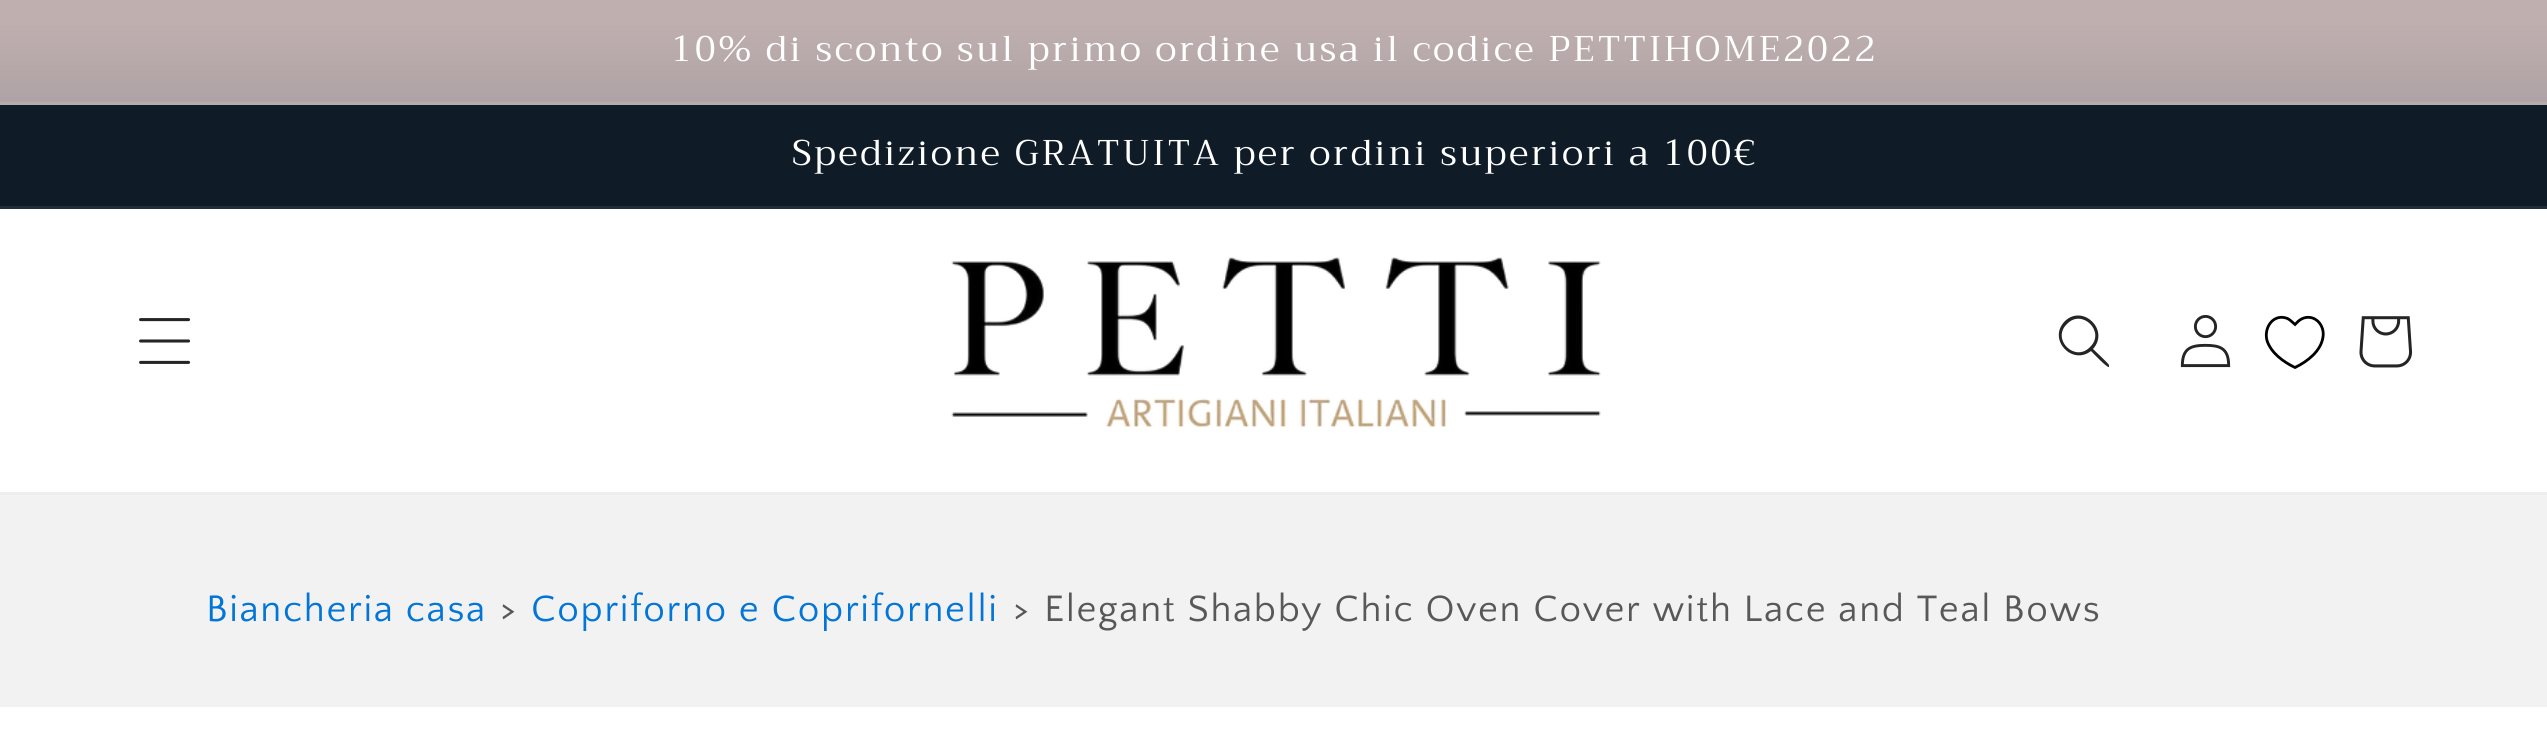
#include <cairo/cairo.h>
#include <math.h>
#include <stddef.h>

static cairo_t *cr;

static void use_color(int r, int g, int b) {
  cairo_set_source_rgb(cr, r / 255.0, g / 255.0, b / 255.0);
}

static void spaced_text(double x, double y, const char *s, double letter, double word) {
  cairo_move_to(cr, x, y);
  while (*s) {
    char ch[5] = {0};
    int n = 0;
    do ch[n++] = *s++; while ((*s & 0xC0) == 0x80);
    cairo_show_text(cr, ch);
    cairo_rel_move_to(cr, letter + word * (*ch == ' '), 0);
  }
}

static void box(double x, double y, double w, double h, int r, int g, int b) {
  use_color(r, g, b);
  cairo_rectangle(cr, x, y, w, h);
  cairo_fill(cr);
}

static void picture(const char *path, double x, double y, double w, double h) {
  cairo_surface_t *image = cairo_image_surface_create_from_png(path);
  cairo_save(cr);
  cairo_set_source_surface(cr, image, x, y);
  cairo_rectangle(cr, x, y, w, h);
  cairo_fill(cr);
  cairo_restore(cr);
  cairo_surface_destroy(image);
}

static void draw(void) {
  cairo_pattern_t *gradient;
  use_color(255, 255, 255);
  cairo_paint(cr);
  gradient = cairo_pattern_create_linear(1275, 0, 1275, 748);
  cairo_pattern_add_color_stop_rgba(gradient, 0.03, 0.749, 0.686, 0.686, 1);
  cairo_pattern_add_color_stop_rgba(gradient, 1, 0.18, 0.251, 0.325, 1);
  cairo_set_source(cr, gradient);
  cairo_pattern_destroy(gradient);
  cairo_rectangle(cr, 0, 0, 2547, 102);
  cairo_fill(cr);
  box(0, 102, 2547, 3, 181, 170, 172);
  box(0, 105, 2547, 101, 15, 27, 39);
  box(0, 206, 2547, 3, 34, 45, 56);
  box(0, 492, 2547, 3, 238, 238, 238);
  picture("img_01.png", 139, 318, 52, 46);
  picture("img_02.png", 951, 257, 650, 170);
  use_color(37, 37, 37);
  cairo_set_fill_rule(cr, CAIRO_FILL_RULE_EVEN_ODD);
  cairo_new_path(cr);
  cairo_move_to(cr, 2090, 347);
  cairo_curve_to(cr, 2075, 363, 2051, 339, 2067, 324);
  cairo_curve_to(cr, 2082, 308, 2106, 332, 2090, 347);
  cairo_close_path(cr);
  cairo_move_to(cr, 2091, 351);
  cairo_curve_to(cr, 2072, 366, 2047, 339, 2065, 321);
  cairo_curve_to(cr, 2083, 304, 2110, 330, 2093, 349);
  cairo_curve_to(cr, 2095, 351, 2109, 364, 2109, 365);
  cairo_line_to(cr, 2109, 367);
  cairo_curve_to(cr, 2107, 368, 2093, 353, 2091, 351);
  cairo_close_path(cr);
  cairo_fill(cr);
  picture("img_03.png", 2180, 314, 51, 54);
  cairo_new_path(cr);
  cairo_move_to(cr, 2295, 367.5);
  cairo_curve_to(cr, 2283.5, 362, 2271, 353, 2267, 340.5);
  cairo_curve_to(cr, 2263.5, 327.5, 2273.5, 313, 2287.5, 318.5);
  cairo_curve_to(cr, 2290.5, 320, 2292.5, 322.5, 2295, 324.5);
  cairo_curve_to(cr, 2297, 322.5, 2299, 320, 2302.5, 318.5);
  cairo_curve_to(cr, 2314.5, 313.5, 2325, 325, 2323, 337);
  cairo_curve_to(cr, 2321, 351, 2307.5, 361.5, 2295, 367.5);
  cairo_close_path(cr);
  use_color(0, 0, 0);
  cairo_set_line_width(cr, 2.8);
  cairo_stroke(cr);
  picture("img_04.png", 2359, 316, 54, 52);
  box(0, 495, 2547, 212, 242, 242, 242);
  cairo_select_font_face(cr, "Trirong", CAIRO_FONT_SLANT_NORMAL, CAIRO_FONT_WEIGHT_NORMAL);
  cairo_set_font_size(cr, 35.75);
  use_color(255, 255, 255);
  spaced_text(671, 61, "10% di sconto sul primo ordine usa il codice PETTIHOME2022", 2.75, 0);
  spaced_text(792, 165, "Spedizione GRATUITA per ordini superiori a 100€", 2.75, 0);
  cairo_select_font_face(cr, "Quattrocento Sans", CAIRO_FONT_SLANT_NORMAL, CAIRO_FONT_WEIGHT_NORMAL);
  cairo_set_font_size(cr, 38.5);
  use_color(2, 117, 216);
  spaced_text(206, 621, "Biancheria casa", 1.65, 0);
  use_color(88, 88, 88);
  spaced_text(500, 621, ">", 1.65, 0);
  use_color(2, 117, 216);
  spaced_text(531, 621, "Copriforno e Coprifornelli", 1.65, 0);
  use_color(88, 88, 88);
  spaced_text(1013, 621, ">", 1.65, 0);
  spaced_text(1044, 621, "Elegant Shabby Chic Oven Cover with Lace and Teal Bows", 1.65, 0);
}

int main(void) {
  cairo_surface_t *surface = cairo_image_surface_create(CAIRO_FORMAT_RGB24, 2547, 746);
  cr = cairo_create(surface);
  cairo_font_options_t *options = cairo_font_options_create();
  cairo_font_options_set_hint_metrics(options, CAIRO_HINT_METRICS_OFF);
  cairo_font_options_set_hint_style(options, CAIRO_HINT_STYLE_NONE);
  cairo_set_font_options(cr, options);
  cairo_set_miter_limit(cr, 4);
  draw();
  cairo_surface_write_to_png(surface, "out.png");
  cairo_font_options_destroy(options);
  cairo_destroy(cr);
  cairo_surface_destroy(surface);
  return 0;
}
